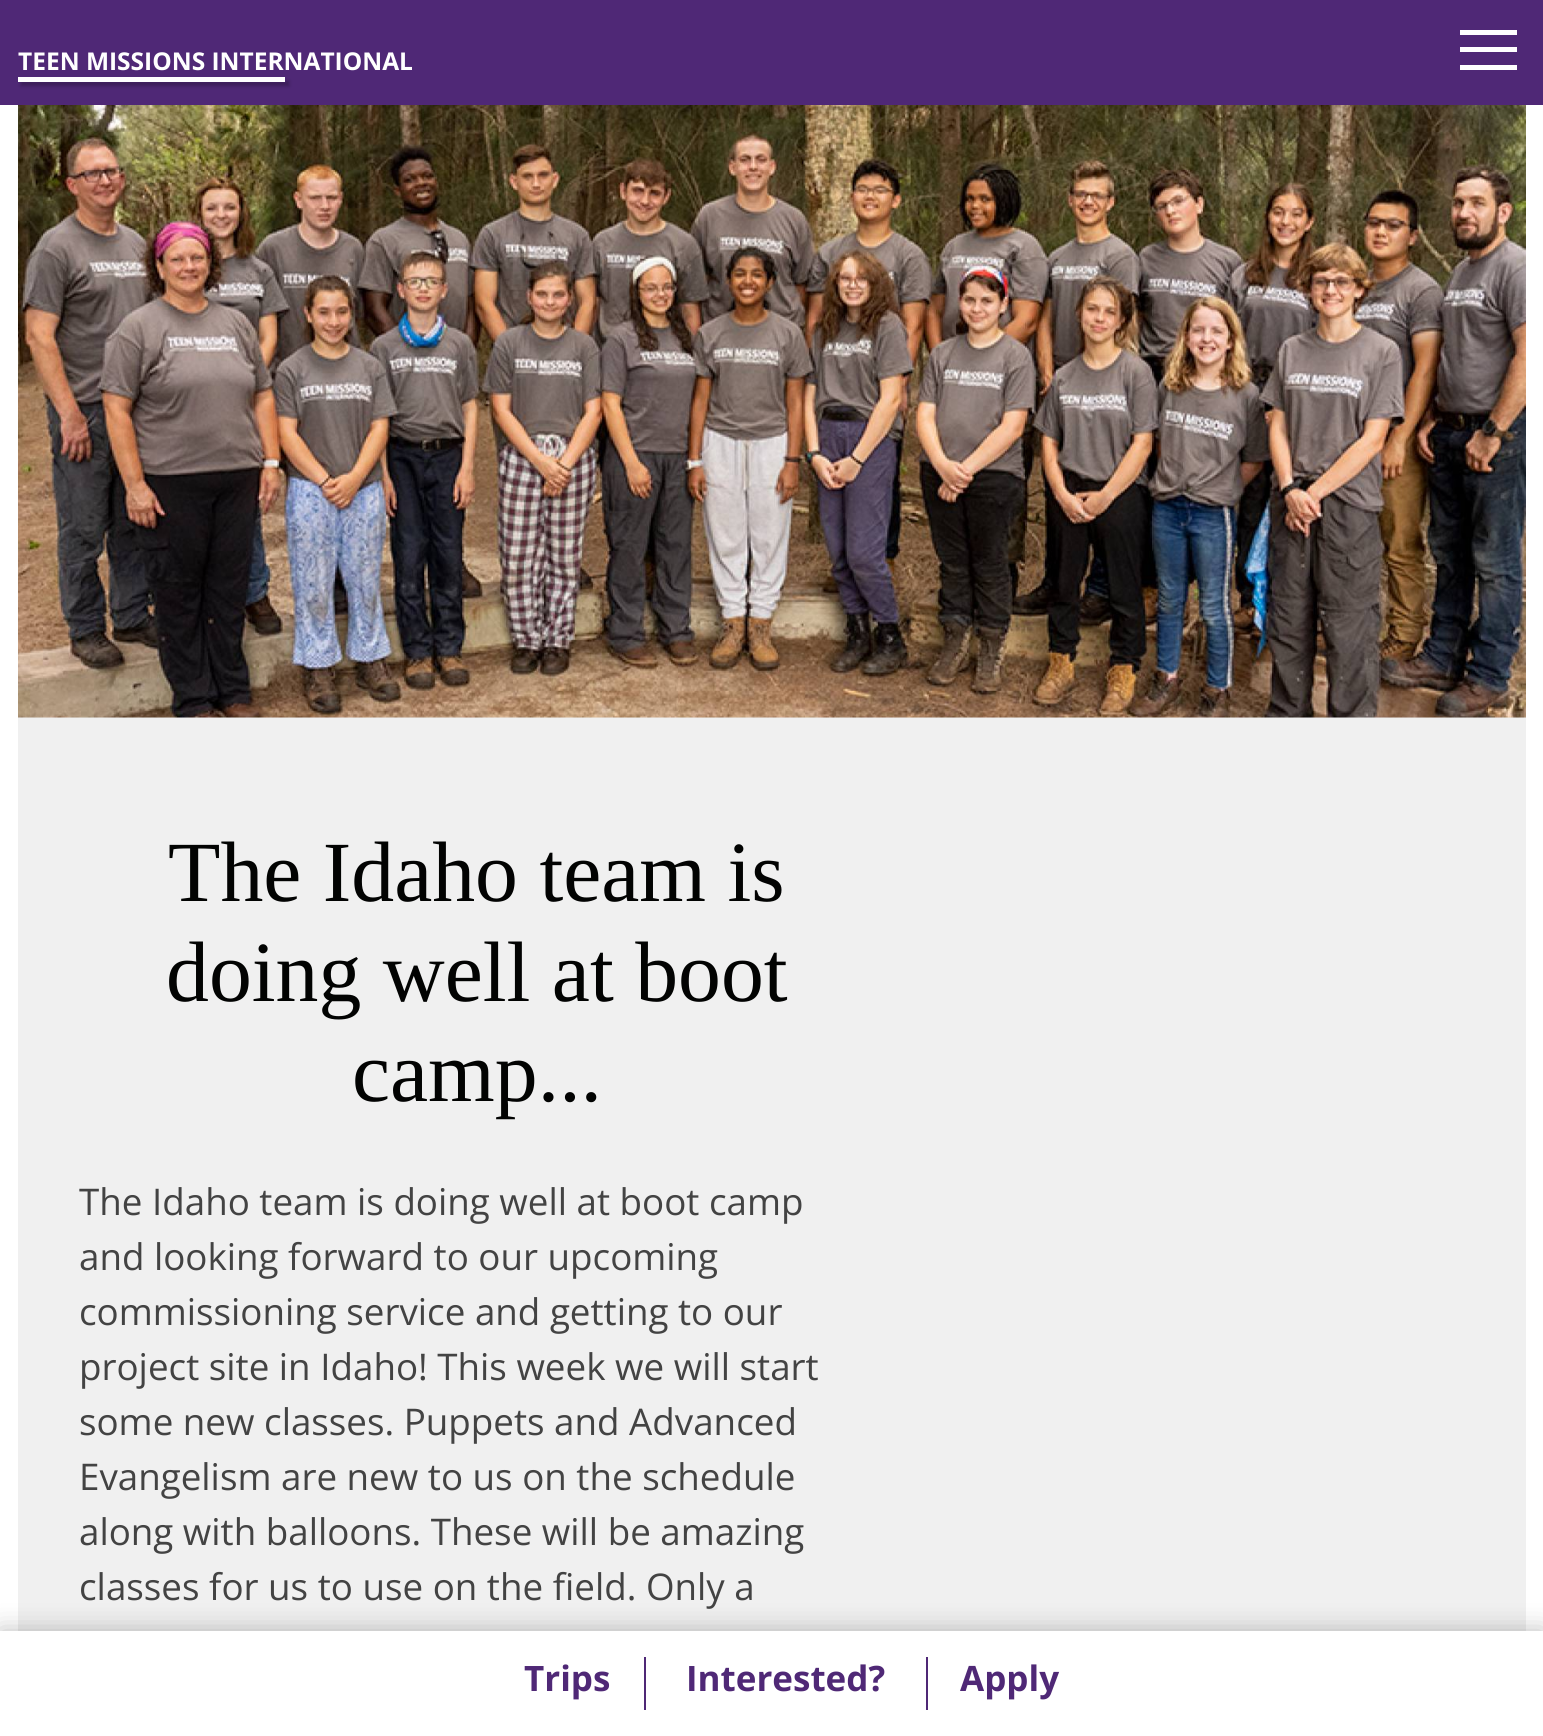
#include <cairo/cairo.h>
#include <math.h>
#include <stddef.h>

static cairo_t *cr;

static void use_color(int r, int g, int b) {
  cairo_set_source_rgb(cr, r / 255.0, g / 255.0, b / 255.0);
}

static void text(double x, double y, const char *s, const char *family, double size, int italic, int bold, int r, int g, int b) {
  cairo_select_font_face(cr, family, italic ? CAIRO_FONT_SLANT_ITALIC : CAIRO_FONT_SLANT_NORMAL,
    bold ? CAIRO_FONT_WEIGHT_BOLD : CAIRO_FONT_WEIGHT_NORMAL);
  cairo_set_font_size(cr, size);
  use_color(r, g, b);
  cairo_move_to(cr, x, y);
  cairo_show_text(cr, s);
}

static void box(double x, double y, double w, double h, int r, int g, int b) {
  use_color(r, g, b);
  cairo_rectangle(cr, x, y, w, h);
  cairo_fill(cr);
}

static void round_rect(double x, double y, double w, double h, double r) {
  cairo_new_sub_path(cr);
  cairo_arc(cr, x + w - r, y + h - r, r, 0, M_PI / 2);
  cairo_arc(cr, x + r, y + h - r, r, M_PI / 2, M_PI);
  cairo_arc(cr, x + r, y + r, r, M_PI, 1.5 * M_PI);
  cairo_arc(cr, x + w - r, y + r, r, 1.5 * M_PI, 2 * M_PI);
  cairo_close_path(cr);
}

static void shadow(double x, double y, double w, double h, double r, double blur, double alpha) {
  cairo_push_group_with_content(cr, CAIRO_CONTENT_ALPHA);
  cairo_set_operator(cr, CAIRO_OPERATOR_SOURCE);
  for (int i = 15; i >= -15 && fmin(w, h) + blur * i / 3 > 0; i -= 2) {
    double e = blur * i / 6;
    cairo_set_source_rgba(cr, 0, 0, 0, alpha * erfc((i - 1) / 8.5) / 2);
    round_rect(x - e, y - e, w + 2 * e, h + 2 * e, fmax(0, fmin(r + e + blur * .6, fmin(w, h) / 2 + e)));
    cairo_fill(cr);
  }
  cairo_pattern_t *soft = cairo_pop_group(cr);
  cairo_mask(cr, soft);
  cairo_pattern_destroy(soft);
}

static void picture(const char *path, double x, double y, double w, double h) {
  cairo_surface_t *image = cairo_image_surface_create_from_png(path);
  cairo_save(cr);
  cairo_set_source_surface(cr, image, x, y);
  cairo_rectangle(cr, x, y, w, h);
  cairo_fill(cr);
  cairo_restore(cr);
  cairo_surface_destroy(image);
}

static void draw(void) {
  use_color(255, 255, 255);
  cairo_paint(cr);
  box(0, 0, 1543, 105, 79, 40, 118);
  use_color(0, 0, 0);
  shadow(21, 81, 268, 5, 0, 2, 0.26);
  box(18, 77, 267, 5, 255, 255, 255);
  box(1460, 30, 57, 5, 255, 255, 255);
  box(1460, 47, 57, 5, 255, 255, 255);
  box(1460, 65, 57, 5, 255, 255, 255);
  box(18, 718, 1508, 913, 240, 240, 240);
  box(18, 717, 1508, 1, 239, 239, 239);
  picture("img_01.png", 18, 105, 1508, 613);
  use_color(0, 0, 0);
  shadow(0, 1631, 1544, 105, 0, 13, 0.26);
  box(0, 1631, 1543, 105, 255, 255, 255);
  box(644, 1657, 2, 53, 79, 40, 118);
  box(926, 1657, 2, 53, 79, 40, 118);
  text(18, 70, "TEEN MISSIONS INTERNATIONAL", "Open Sans", 24.5, 0, 1, 255, 255, 255);
  text(168, 901, "The Idaho team is", "Liberation Serif", 85.75, 0, 0, 2, 3, 2);
  text(166, 1001, "doing well at boot", "Liberation Serif", 85.75, 0, 0, 2, 3, 2);
  text(352, 1101, "camp...", "Liberation Serif", 85.75, 0, 0, 2, 3, 2);
  text(79, 1215, "The Idaho team is doing well at boot camp", "Open Sans", 36.75, 0, 0, 67, 67, 67);
  text(79, 1270, "and looking forward to our upcoming", "Open Sans", 36.75, 0, 0, 67, 67, 67);
  text(79, 1325, "commissioning service and getting to our", "Open Sans", 36.75, 0, 0, 67, 67, 67);
  text(79, 1380, "project site in Idaho! This week we will start", "Open Sans", 36.75, 0, 0, 67, 67, 67);
  text(79, 1435, "some new classes. Puppets and Advanced", "Open Sans", 36.75, 0, 0, 67, 67, 67);
  text(79, 1490, "Evangelism are new to us on the schedule", "Open Sans", 36.75, 0, 0, 67, 67, 67);
  text(79, 1545, "along with balloons. These will be amazing", "Open Sans", 36.75, 0, 0, 67, 67, 67);
  text(79, 1600, "classes for us to use on the field. Only a", "Open Sans", 36.75, 0, 0, 67, 67, 67);
  text(524, 1691, "Trips", "Open Sans", 35, 0, 1, 79, 40, 118);
  text(686, 1691, "Interested?", "Open Sans", 35, 0, 1, 79, 40, 118);
  text(960, 1691, "Apply", "Open Sans", 35, 0, 1, 79, 40, 118);
}

int main(void) {
  cairo_surface_t *surface = cairo_image_surface_create(CAIRO_FORMAT_RGB24, 1543, 1736);
  cr = cairo_create(surface);
  cairo_font_options_t *options = cairo_font_options_create();
  cairo_font_options_set_hint_metrics(options, CAIRO_HINT_METRICS_OFF);
  cairo_font_options_set_hint_style(options, CAIRO_HINT_STYLE_NONE);
  cairo_set_font_options(cr, options);
  cairo_set_miter_limit(cr, 4);
  draw();
  cairo_surface_write_to_png(surface, "out.png");
  cairo_font_options_destroy(options);
  cairo_destroy(cr);
  cairo_surface_destroy(surface);
  return 0;
}
